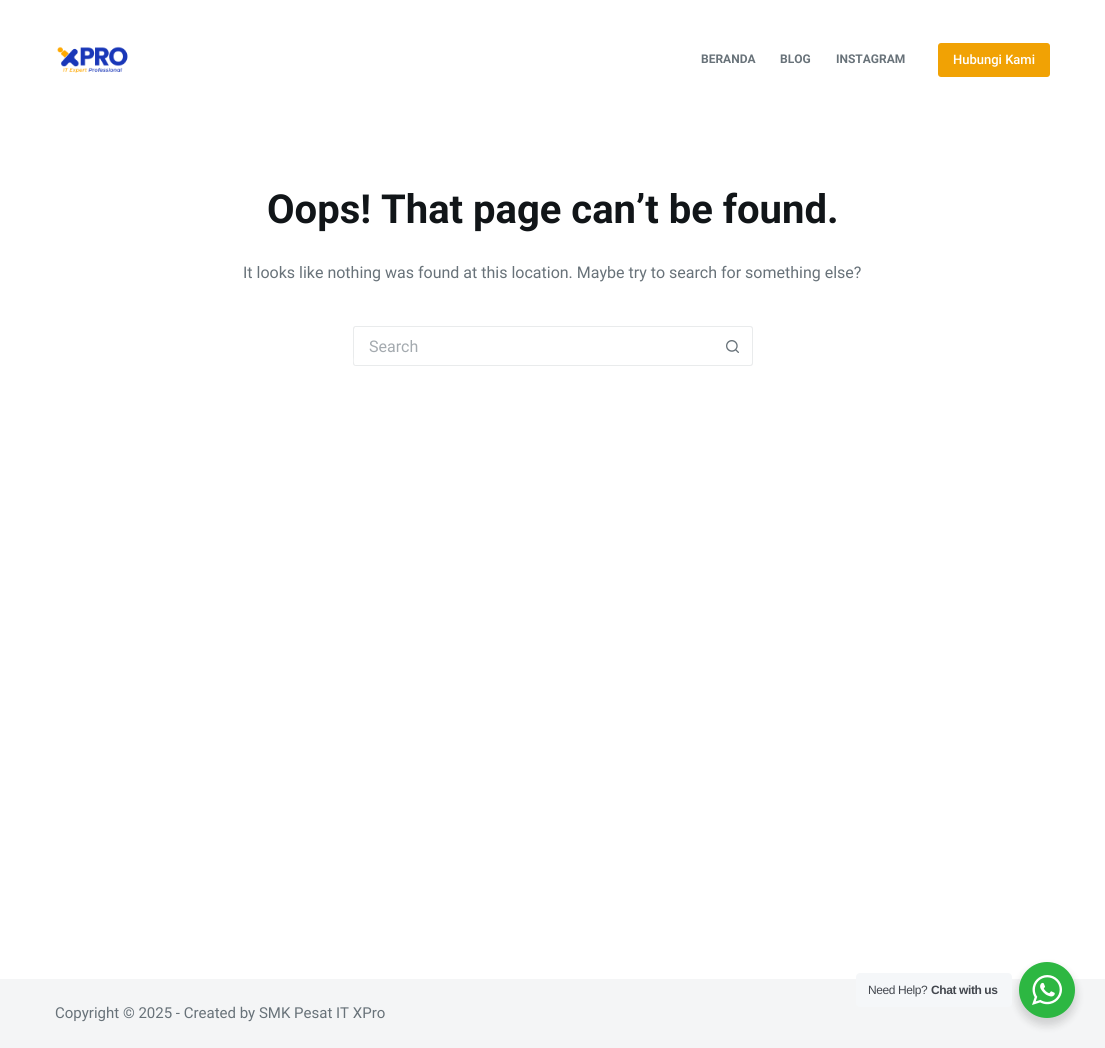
#include <cairo/cairo.h>
#include <math.h>
#include <stddef.h>

static cairo_t *cr;

static void use_color(int r, int g, int b) {
  cairo_set_source_rgb(cr, r / 255.0, g / 255.0, b / 255.0);
}

static void text(double x, double y, const char *s, const char *family, double size, int italic, int bold, int r, int g, int b) {
  cairo_select_font_face(cr, family, italic ? CAIRO_FONT_SLANT_ITALIC : CAIRO_FONT_SLANT_NORMAL,
    bold ? CAIRO_FONT_WEIGHT_BOLD : CAIRO_FONT_WEIGHT_NORMAL);
  cairo_set_font_size(cr, size);
  use_color(r, g, b);
  cairo_move_to(cr, x, y);
  cairo_show_text(cr, s);
}

static void spaced_text(double x, double y, const char *s, double letter, double word) {
  cairo_move_to(cr, x, y);
  while (*s) {
    char ch[5] = {0};
    int n = 0;
    do ch[n++] = *s++; while ((*s & 0xC0) == 0x80);
    cairo_show_text(cr, ch);
    cairo_rel_move_to(cr, letter + word * (*ch == ' '), 0);
  }
}

static void box(double x, double y, double w, double h, int r, int g, int b) {
  use_color(r, g, b);
  cairo_rectangle(cr, x, y, w, h);
  cairo_fill(cr);
}

static void round_rect(double x, double y, double w, double h, double r) {
  cairo_new_sub_path(cr);
  cairo_arc(cr, x + w - r, y + h - r, r, 0, M_PI / 2);
  cairo_arc(cr, x + r, y + h - r, r, M_PI / 2, M_PI);
  cairo_arc(cr, x + r, y + r, r, M_PI, 1.5 * M_PI);
  cairo_arc(cr, x + w - r, y + r, r, 1.5 * M_PI, 2 * M_PI);
  cairo_close_path(cr);
}

static void shadow(double x, double y, double w, double h, double r, double blur, double alpha) {
  cairo_push_group_with_content(cr, CAIRO_CONTENT_ALPHA);
  cairo_set_operator(cr, CAIRO_OPERATOR_SOURCE);
  for (int i = 15; i >= -15 && fmin(w, h) + blur * i / 3 > 0; i -= 2) {
    double e = blur * i / 6;
    cairo_set_source_rgba(cr, 0, 0, 0, alpha * erfc((i - 1) / 8.5) / 2);
    round_rect(x - e, y - e, w + 2 * e, h + 2 * e, fmax(0, fmin(r + e + blur * .6, fmin(w, h) / 2 + e)));
    cairo_fill(cr);
  }
  cairo_pattern_t *soft = cairo_pop_group(cr);
  cairo_mask(cr, soft);
  cairo_pattern_destroy(soft);
}

static void picture(const char *path, double x, double y, double w, double h) {
  cairo_surface_t *image = cairo_image_surface_create_from_png(path);
  cairo_save(cr);
  cairo_set_source_surface(cr, image, x, y);
  cairo_rectangle(cr, x, y, w, h);
  cairo_fill(cr);
  cairo_restore(cr);
  cairo_surface_destroy(image);
}

static void draw(void) {
  use_color(255, 255, 255);
  cairo_paint(cr);
  picture("img_01.png", 57, 46, 71, 27);
  use_color(241, 162, 4);
  round_rect(938, 43, 112, 34, 3);
  cairo_fill(cr);
  use_color(233, 235, 236);
  cairo_set_fill_rule(cr, CAIRO_FILL_RULE_EVEN_ODD);
  cairo_new_path(cr);
  cairo_move_to(cr, 356, 326);
  cairo_line_to(cr, 713, 326);
  cairo_line_to(cr, 713, 366);
  cairo_line_to(cr, 356, 366);
  cairo_curve_to(cr, 354, 366, 353, 365, 353, 363);
  cairo_line_to(cr, 353, 329);
  cairo_curve_to(cr, 353, 327, 354, 326, 356, 326);
  cairo_close_path(cr);
  cairo_move_to(cr, 356, 327);
  cairo_line_to(cr, 713, 327);
  cairo_line_to(cr, 713, 365);
  cairo_line_to(cr, 355, 365);
  cairo_curve_to(cr, 353, 363, 354, 358, 354, 357);
  cairo_line_to(cr, 354, 329);
  cairo_line_to(cr, 355, 327);
  cairo_close_path(cr);
  cairo_fill(cr);
  cairo_new_path(cr);
  cairo_move_to(cr, 713, 326);
  cairo_line_to(cr, 750, 326);
  cairo_curve_to(cr, 752, 326, 753, 327, 753, 329);
  cairo_line_to(cr, 753, 363);
  cairo_curve_to(cr, 753, 365, 752, 366, 750, 366);
  cairo_line_to(cr, 713, 366);
  cairo_close_path(cr);
  cairo_move_to(cr, 713, 327);
  cairo_line_to(cr, 750, 327);
  cairo_curve_to(cr, 751, 327, 752, 328, 752, 329);
  cairo_line_to(cr, 752, 363);
  cairo_curve_to(cr, 752, 364, 751, 365, 750, 365);
  cairo_line_to(cr, 713, 365);
  cairo_close_path(cr);
  cairo_fill(cr);
  picture("img_02.png", 726, 340, 13, 13);
  box(0, 979, 1105, 69, 244, 245, 246);
  use_color(0, 0, 0);
  shadow(1017, 966, 60, 60, 30, 4, 0.14);
  use_color(245, 247, 249);
  round_rect(856, 973, 156, 34, 4);
  cairo_fill(cr);
  use_color(45, 183, 66);
  cairo_arc(cr, 1047, 990, 28, 0, 2 * M_PI);
  cairo_fill(cr);
  picture("img_03.png", 1032, 975, 30, 30);
  text(701, 63, "BERANDA", "Roboto", 12, 0, 1, 104, 114, 121);
  text(780, 63, "BLOG", "Roboto", 12, 0, 1, 104, 114, 121);
  text(836, 63, "INSTAGRAM", "Roboto", 12, 0, 1, 104, 114, 121);
  text(953, 64, "Hubungi Kami", "Roboto Medium", 13, 0, 0, 255, 255, 255);
  text(267, 223, "Oops! That page can’t be found.", "Roboto", 40, 0, 1, 17, 21, 24);
  text(243, 278, "It looks like nothing was found at this location. Maybe try to search for something else?", "Roboto", 16, 0, 0, 104, 114, 121);
  text(369, 352, "Search", "Roboto", 16, 0, 0, 164, 170, 175);
  text(55, 1018, "Copyright © 2025 - Created by SMK Pesat IT XPro", "Roboto", 15, 0, 0, 104, 114, 121);
  cairo_select_font_face(cr, "Liberation Sans", CAIRO_FONT_SLANT_NORMAL, CAIRO_FONT_WEIGHT_NORMAL);
  cairo_set_font_size(cr, 12);
  use_color(67, 71, 78);
  spaced_text(868, 994, "Need Help?", -0.4, 0);
  cairo_select_font_face(cr, "Liberation Sans", CAIRO_FONT_SLANT_NORMAL, CAIRO_FONT_WEIGHT_BOLD);
  spaced_text(931, 994, "Chat with us", -0.4, 0);
}

int main(void) {
  cairo_surface_t *surface = cairo_image_surface_create(CAIRO_FORMAT_RGB24, 1105, 1048);
  cr = cairo_create(surface);
  cairo_font_options_t *options = cairo_font_options_create();
  cairo_font_options_set_hint_metrics(options, CAIRO_HINT_METRICS_OFF);
  cairo_font_options_set_hint_style(options, CAIRO_HINT_STYLE_NONE);
  cairo_set_font_options(cr, options);
  cairo_set_miter_limit(cr, 4);
  draw();
  cairo_surface_write_to_png(surface, "out.png");
  cairo_font_options_destroy(options);
  cairo_destroy(cr);
  cairo_surface_destroy(surface);
  return 0;
}
